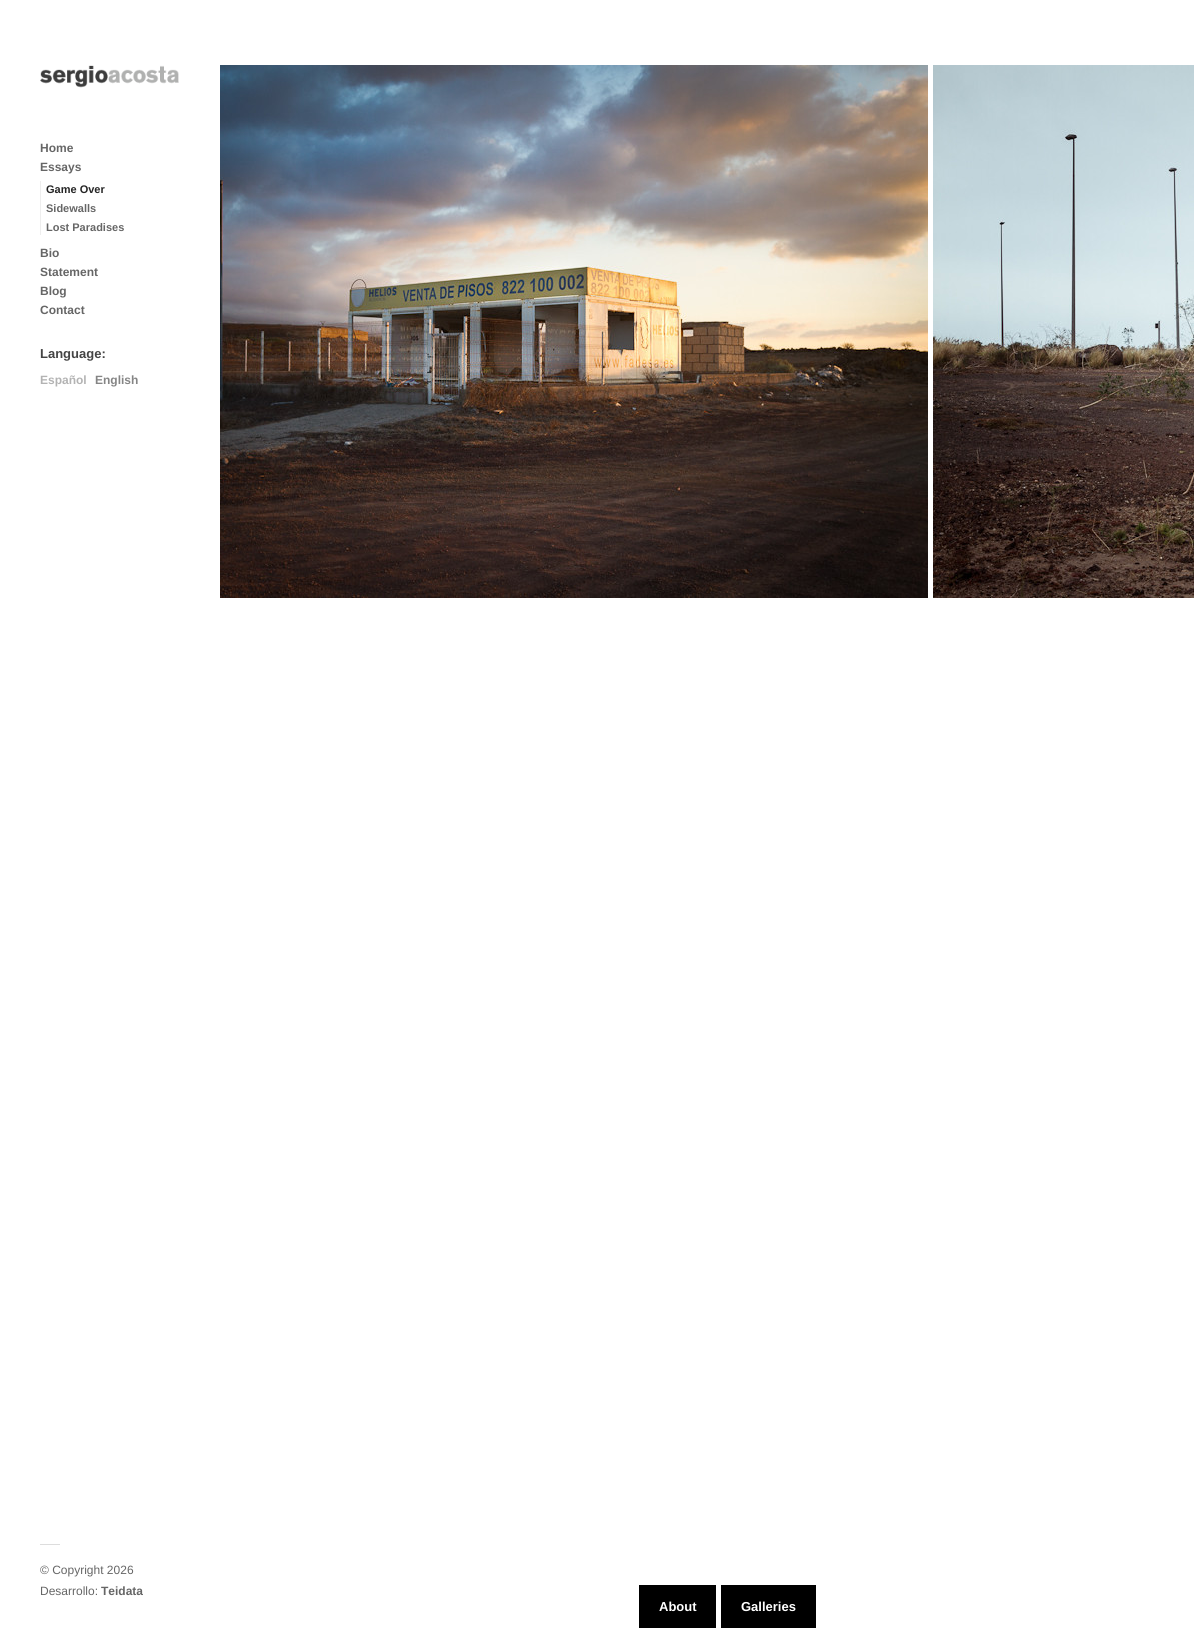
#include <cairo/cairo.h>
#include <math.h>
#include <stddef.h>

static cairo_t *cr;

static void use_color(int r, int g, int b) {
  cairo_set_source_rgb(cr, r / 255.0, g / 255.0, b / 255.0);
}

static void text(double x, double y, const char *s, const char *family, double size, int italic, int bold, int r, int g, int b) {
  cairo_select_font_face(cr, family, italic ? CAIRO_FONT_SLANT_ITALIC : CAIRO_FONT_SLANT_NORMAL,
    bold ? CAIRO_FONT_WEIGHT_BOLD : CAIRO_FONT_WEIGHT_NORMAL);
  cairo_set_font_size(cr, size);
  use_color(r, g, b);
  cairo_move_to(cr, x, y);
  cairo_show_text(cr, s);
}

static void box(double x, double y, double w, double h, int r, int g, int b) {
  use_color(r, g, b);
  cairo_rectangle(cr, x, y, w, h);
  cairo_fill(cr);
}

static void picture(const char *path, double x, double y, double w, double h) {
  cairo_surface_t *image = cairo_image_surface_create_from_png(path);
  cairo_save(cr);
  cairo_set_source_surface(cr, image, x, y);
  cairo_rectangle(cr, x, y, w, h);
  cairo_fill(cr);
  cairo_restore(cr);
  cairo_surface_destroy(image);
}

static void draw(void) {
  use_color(255, 255, 255);
  cairo_paint(cr);
  picture("img_01.png", 40, 65, 139, 23);
  box(40, 181, 1, 54, 238, 238, 238);
  box(40, 1544, 20, 1, 221, 221, 221);
  picture("img_02.png", 220, 65, 708, 533);
  picture("img_03.png", 933, 65, 261, 533);
  box(639, 1585, 77, 43, 0, 0, 0);
  box(721, 1585, 95, 43, 0, 0, 0);
  text(40, 152, "Home", "Liberation Sans", 12, 0, 1, 102, 102, 102);
  text(40, 171, "Essays", "Liberation Sans", 12, 0, 1, 102, 102, 102);
  text(46, 193, "Game Over", "Liberation Sans", 11, 0, 1, 37, 37, 37);
  text(46, 212, "Sidewalls", "Liberation Sans", 11, 0, 1, 102, 102, 102);
  text(46, 231, "Lost Paradises", "Liberation Sans", 11, 0, 1, 102, 102, 102);
  text(40, 257, "Bio", "Liberation Sans", 12, 0, 1, 102, 102, 102);
  text(40, 276, "Statement", "Liberation Sans", 12, 0, 1, 102, 102, 102);
  text(40, 295, "Blog", "Liberation Sans", 12, 0, 1, 102, 102, 102);
  text(40, 314, "Contact", "Liberation Sans", 12, 0, 1, 102, 102, 102);
  text(40, 358, "Language:", "Liberation Sans", 13, 0, 1, 68, 68, 68);
  text(40, 384, "Español", "Liberation Sans", 12, 0, 1, 179, 179, 179);
  text(95, 384, "English", "Liberation Sans", 12, 0, 1, 133, 133, 133);
  text(40, 1574, "© Copyright 2026", "Liberation Sans", 12, 0, 0, 102, 102, 102);
  text(40, 1595, "Desarrollo:", "Liberation Sans", 12, 0, 0, 102, 102, 102);
  text(101, 1595, "Teidata", "Liberation Sans", 12, 0, 1, 102, 102, 102);
  text(659, 1611, "About", "Liberation Sans", 13, 0, 1, 255, 255, 255);
  text(741, 1611, "Galleries", "Liberation Sans", 13, 0, 1, 255, 255, 255);
}

int main(void) {
  cairo_surface_t *surface = cairo_image_surface_create(CAIRO_FORMAT_RGB24, 1194, 1628);
  cr = cairo_create(surface);
  cairo_font_options_t *options = cairo_font_options_create();
  cairo_font_options_set_hint_metrics(options, CAIRO_HINT_METRICS_OFF);
  cairo_font_options_set_hint_style(options, CAIRO_HINT_STYLE_NONE);
  cairo_set_font_options(cr, options);
  cairo_set_miter_limit(cr, 4);
  draw();
  cairo_surface_write_to_png(surface, "out.png");
  cairo_font_options_destroy(options);
  cairo_destroy(cr);
  cairo_surface_destroy(surface);
  return 0;
}
